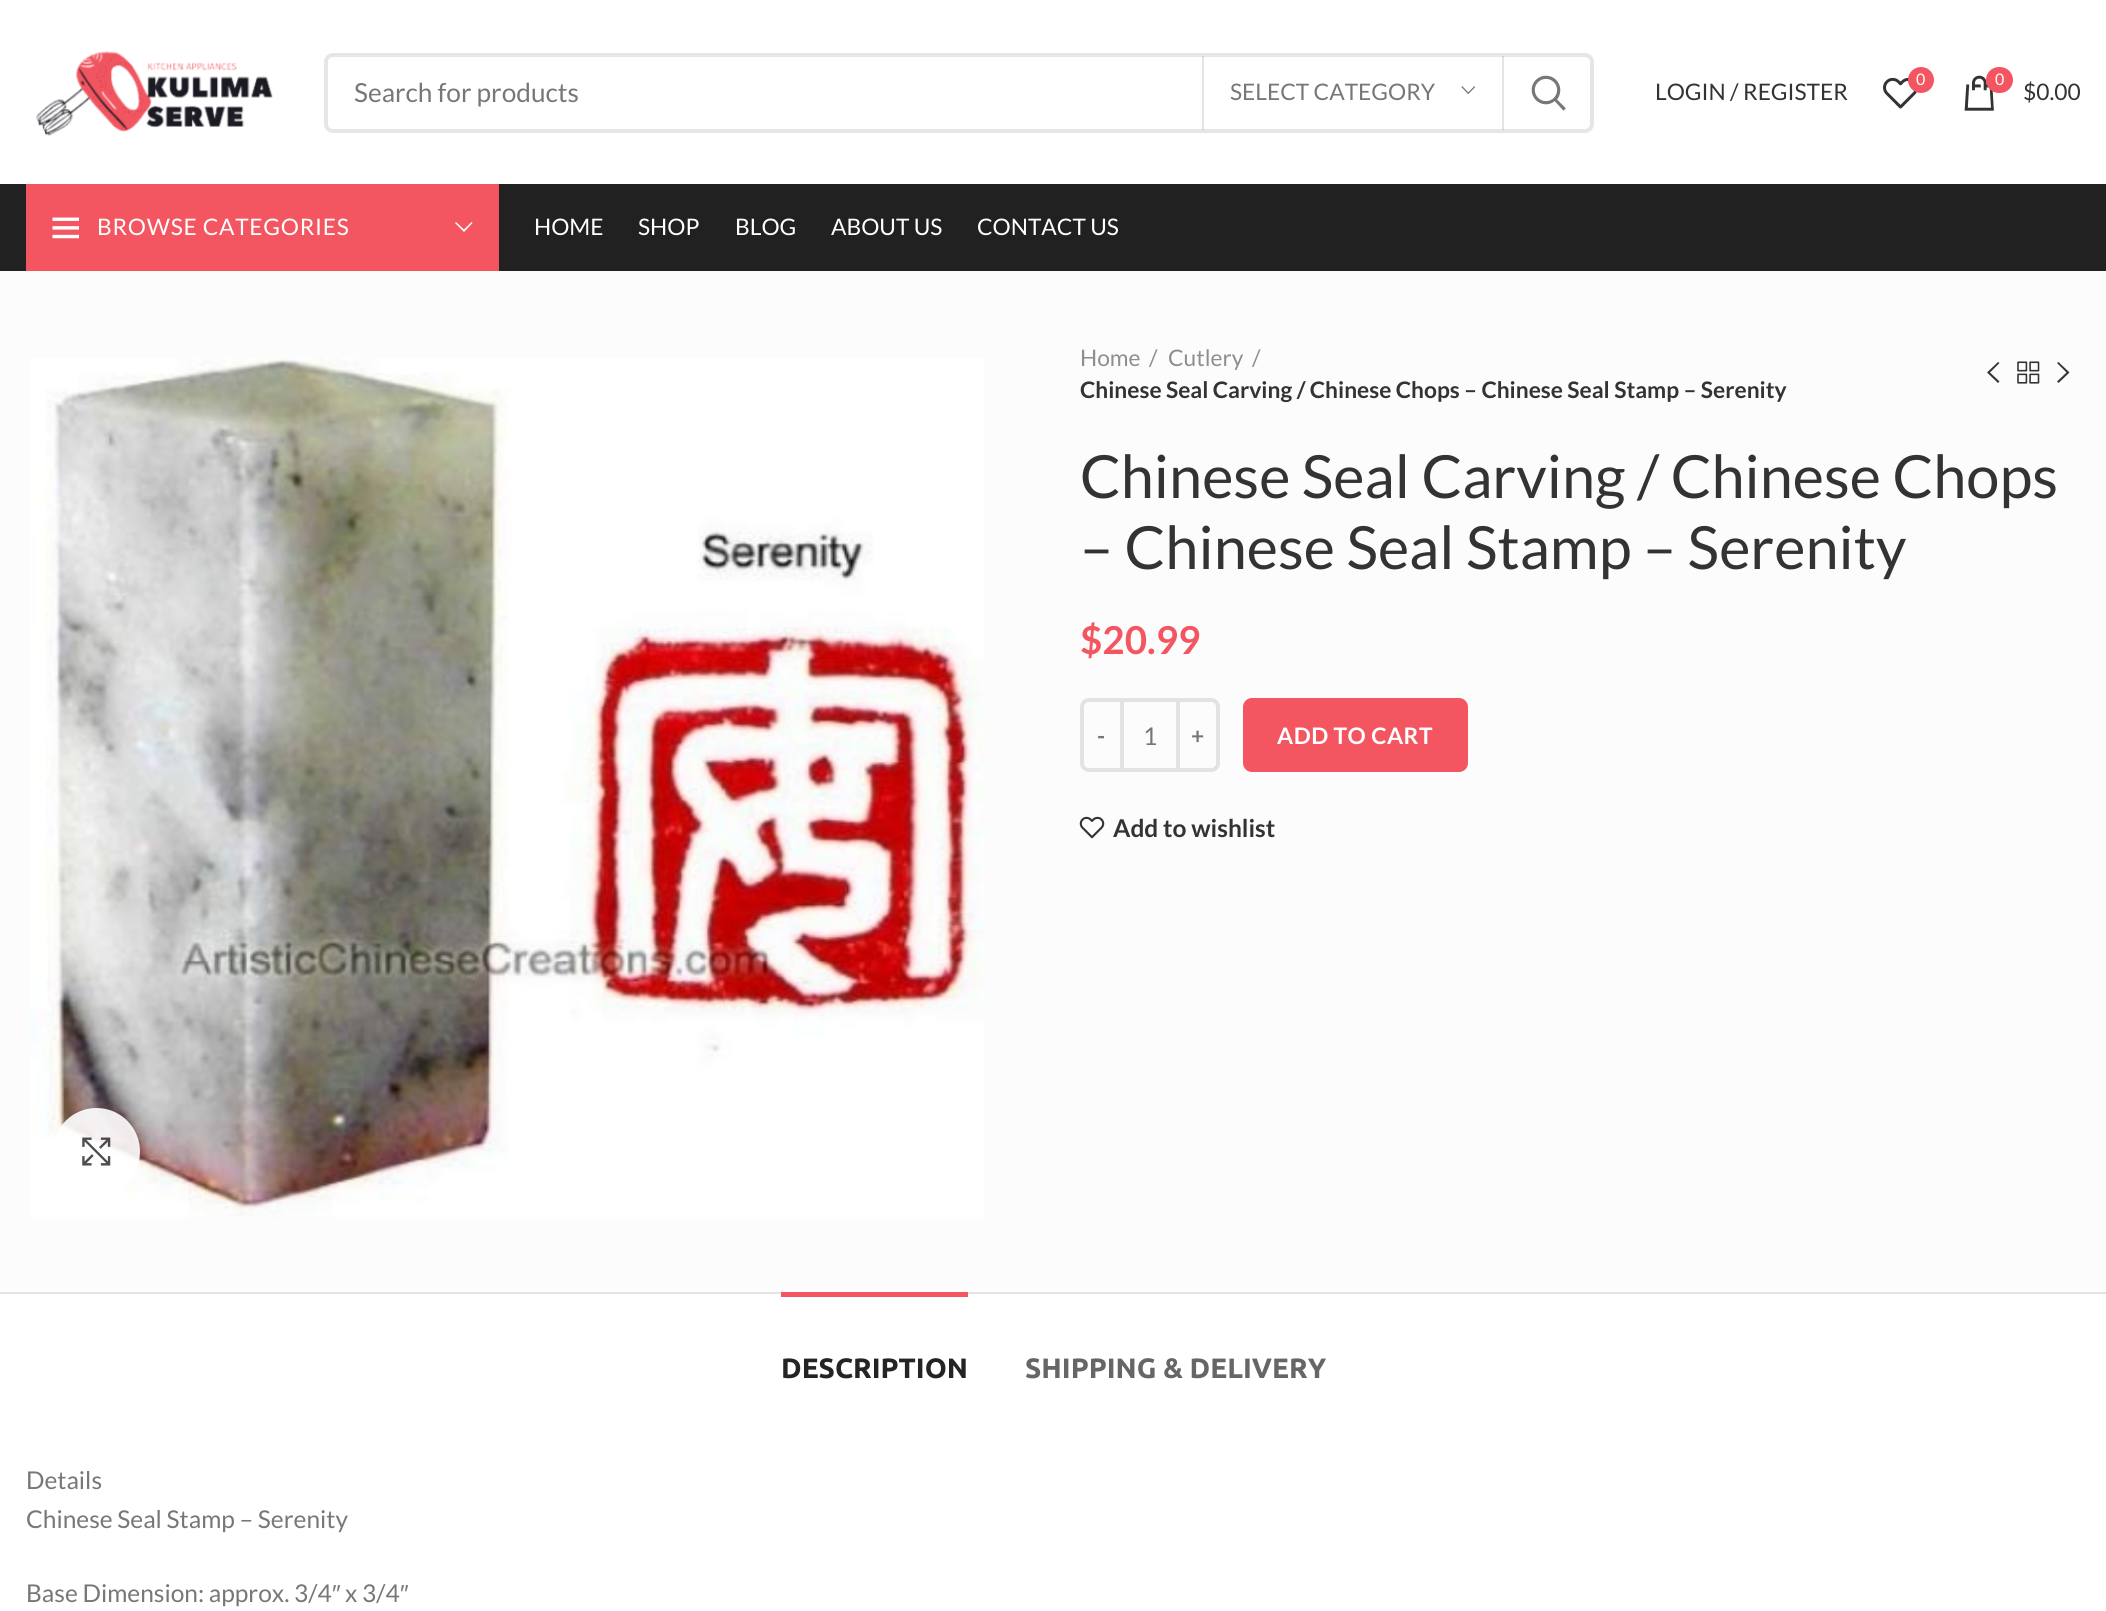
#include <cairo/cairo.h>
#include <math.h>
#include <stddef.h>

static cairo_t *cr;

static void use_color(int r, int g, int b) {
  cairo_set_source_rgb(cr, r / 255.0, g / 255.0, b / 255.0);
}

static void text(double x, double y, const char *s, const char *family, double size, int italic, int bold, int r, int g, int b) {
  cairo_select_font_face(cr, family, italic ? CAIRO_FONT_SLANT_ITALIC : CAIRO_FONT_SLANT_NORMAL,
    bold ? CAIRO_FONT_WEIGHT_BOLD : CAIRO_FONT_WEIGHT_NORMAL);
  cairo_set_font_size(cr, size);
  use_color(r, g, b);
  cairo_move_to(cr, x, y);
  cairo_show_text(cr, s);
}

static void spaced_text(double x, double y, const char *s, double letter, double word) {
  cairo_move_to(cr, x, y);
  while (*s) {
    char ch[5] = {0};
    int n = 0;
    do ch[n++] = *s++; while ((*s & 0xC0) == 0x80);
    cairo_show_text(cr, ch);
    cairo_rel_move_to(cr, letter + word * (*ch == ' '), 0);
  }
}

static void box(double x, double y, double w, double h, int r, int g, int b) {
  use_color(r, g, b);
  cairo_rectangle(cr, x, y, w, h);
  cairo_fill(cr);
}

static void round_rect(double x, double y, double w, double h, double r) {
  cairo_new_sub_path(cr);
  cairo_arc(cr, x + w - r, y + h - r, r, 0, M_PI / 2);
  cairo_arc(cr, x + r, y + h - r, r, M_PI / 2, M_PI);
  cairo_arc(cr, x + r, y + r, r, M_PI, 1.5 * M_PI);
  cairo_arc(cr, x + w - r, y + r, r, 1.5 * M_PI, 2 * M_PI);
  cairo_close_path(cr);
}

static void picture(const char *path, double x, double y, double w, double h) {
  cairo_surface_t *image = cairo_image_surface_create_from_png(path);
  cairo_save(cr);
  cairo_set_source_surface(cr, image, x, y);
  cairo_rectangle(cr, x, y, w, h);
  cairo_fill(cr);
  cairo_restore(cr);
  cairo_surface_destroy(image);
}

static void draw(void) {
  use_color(255, 255, 255);
  cairo_paint(cr);
  picture("img_01.png", 36, 51, 237, 85);
  round_rect(326, 55, 1266, 76, 7);
  use_color(230, 230, 230);
  cairo_set_line_width(cr, 4);
  cairo_stroke(cr);
  cairo_set_source_rgba(cr, 0.506, 0.506, 0.506, 0.2);
  cairo_rectangle(cr, 1502, 56, 2, 74);
  cairo_fill(cr);
  cairo_rectangle(cr, 1202, 56, 2, 74);
  cairo_fill(cr);
  picture("img_02.png", 1461, 86, 15, 8);
  picture("img_03.png", 1531, 75, 35, 36);
  picture("img_04.png", 1883, 77, 34, 32);
  use_color(243, 86, 97);
  cairo_arc(cr, 1921, 80, 13, 0, 2 * M_PI);
  cairo_fill(cr);
  picture("img_05.png", 1964, 75, 30, 36);
  round_rect(1986, 67, 27, 26, 13);
  cairo_fill(cr);
  box(0, 184, 2106, 87, 33, 33, 33);
  box(26, 184, 473, 87, 243, 86, 97);
  picture("img_06.png", 52, 217, 27, 22);
  use_color(255, 255, 255);
  cairo_new_path(cr);
  cairo_move_to(cr, 471.5, 222);
  cairo_line_to(cr, 472.5, 223);
  cairo_line_to(cr, 464, 232);
  cairo_line_to(cr, 455, 223);
  cairo_line_to(cr, 456, 222);
  cairo_line_to(cr, 464, 229.5);
  cairo_close_path(cr);
  cairo_fill(cr);
  box(0, 271, 2106, 1021, 253, 252, 252);
  picture("img_07.png", 30, 358, 954, 859);
  cairo_set_source_rgba(cr, 1, 1, 1, 0.9);
  cairo_arc(cr, 96.5, 1151.5, 43.5, 0, 2 * M_PI);
  cairo_fill(cr);
  picture("img_08.png", 82, 1137, 29, 29);
  use_color(51, 51, 51);
  cairo_new_path(cr);
  cairo_move_to(cr, 1999.5, 363);
  cairo_line_to(cr, 1990, 372.5);
  cairo_line_to(cr, 1999.5, 381.5);
  cairo_line_to(cr, 1998, 383);
  cairo_line_to(cr, 1987, 372.5);
  cairo_line_to(cr, 1998, 362);
  cairo_close_path(cr);
  cairo_fill(cr);
  picture("img_09.png", 2017, 361, 23, 23);
  cairo_new_path(cr);
  cairo_move_to(cr, 2058.5, 362);
  cairo_line_to(cr, 2069.5, 372.5);
  cairo_line_to(cr, 2058.5, 383);
  cairo_line_to(cr, 2057, 381.5);
  cairo_line_to(cr, 2066.5, 372.5);
  cairo_line_to(cr, 2057, 363);
  cairo_close_path(cr);
  cairo_fill(cr);
  cairo_new_path(cr);
  cairo_move_to(cr, 1089, 700);
  cairo_line_to(cr, 1122, 700);
  cairo_line_to(cr, 1122, 770);
  cairo_line_to(cr, 1089, 770);
  cairo_curve_to(cr, 1085, 770, 1082, 767, 1082, 763);
  cairo_line_to(cr, 1082, 707);
  cairo_curve_to(cr, 1082, 703, 1085, 700, 1089, 700);
  cairo_close_path(cr);
  use_color(228, 227, 227);
  cairo_stroke(cr);
  box(1124, 698, 52, 4, 228, 227, 227);
  box(1124, 768, 52, 4, 228, 227, 227);
  cairo_new_path(cr);
  cairo_move_to(cr, 1178, 700);
  cairo_line_to(cr, 1211, 700);
  cairo_curve_to(cr, 1215, 700, 1218, 703, 1218, 707);
  cairo_line_to(cr, 1218, 763);
  cairo_curve_to(cr, 1218, 767, 1215, 770, 1211, 770);
  cairo_line_to(cr, 1178, 770);
  cairo_close_path(cr);
  cairo_stroke(cr);
  use_color(243, 86, 97);
  round_rect(1243, 698, 225, 74, 9);
  cairo_fill(cr);
  picture("img_10.png", 1079, 816, 26, 23);
  box(0, 1292, 2106, 2, 228, 228, 228);
  box(781, 1292, 187, 5, 243, 86, 97);
  text(354, 102, "Search for products", "Lato", 26.25, 0, 0, 119, 119, 119);
  text(1230, 100, "SELECT CATEGORY", "Lato", 22.75, 0, 0, 119, 119, 119);
  text(1655, 100, "LOGIN / REGISTER", "Lato", 22.75, 0, 0, 51, 51, 51);
  text(1916, 85, "0", "Lato", 16, 0, 0, 255, 255, 255);
  text(1995, 85, "0", "Lato", 16, 0, 0, 255, 255, 255);
  text(2023, 100, "$0.00", "Lato", 22.75, 0, 0, 51, 51, 51);
  use_color(255, 255, 255);
  spaced_text(97, 235, "BROWSE CATEGORIES", 0.75, 0);
  text(534, 235, "HOME", "Lato", 22.75, 0, 0, 255, 255, 255);
  text(638, 235, "SHOP", "Lato", 22.75, 0, 0, 255, 255, 255);
  text(735, 235, "BLOG", "Lato", 22.75, 0, 0, 255, 255, 255);
  text(831, 235, "ABOUT US", "Lato", 22.75, 0, 0, 255, 255, 255);
  text(977, 235, "CONTACT US", "Lato", 22.75, 0, 0, 255, 255, 255);
  text(1080, 366, "Home", "Lato", 22.75, 0, 0, 142, 142, 142);
  text(1149, 366, "/", "Lato", 22.75, 0, 0, 142, 142, 142);
  text(1168, 366, "Cutlery", "Lato", 22.75, 0, 0, 142, 142, 142);
  text(1252, 366, "/", "Lato", 22.75, 0, 0, 142, 142, 142);
  text(1080, 398, "Chinese Seal Carving / Chinese Chops – Chinese Seal Stamp – Serenity", "Lato", 22.75, 0, 1, 51, 51, 51);
  text(1080, 498, "Chinese Seal Carving / Chinese Chops", "Lato", 59.5, 0, 0, 51, 51, 51);
  text(1080, 569, "– Chinese Seal Stamp – Serenity", "Lato", 59.5, 0, 0, 51, 51, 51);
  text(1080, 654, "$20.99", "Lato", 38.5, 0, 1, 243, 86, 97);
  cairo_set_font_size(cr, 22.75);
  use_color(119, 119, 119);
  spaced_text(1097, 744, "-", 0.5, 0);
  text(1143, 745, "1", "Lato", 24.5, 0, 0, 119, 119, 119);
  cairo_select_font_face(cr, "Lato", CAIRO_FONT_SLANT_NORMAL, CAIRO_FONT_WEIGHT_BOLD);
  cairo_set_font_size(cr, 22.75);
  spaced_text(1191, 744, "+", 0.5, 0);
  use_color(255, 255, 255);
  spaced_text(1277, 744, "ADD TO CART", 0.5, 0);
  text(1113, 837, "Add to wishlist", "Lato", 24.5, 0, 1, 51, 51, 51);
  text(781, 1378, "DESCRIPTION", "Ubuntu", 28, 0, 1, 36, 36, 36);
  text(1025, 1378, "SHIPPING & DELIVERY", "Ubuntu", 28, 0, 1, 102, 102, 102);
  text(26, 1489, "Details", "Lato", 24.5, 0, 0, 119, 119, 119);
  text(26, 1528, "Chinese Seal Stamp – Serenity", "Lato", 24.5, 0, 0, 119, 119, 119);
  text(26, 1602, "Base Dimension: approx. 3/4", "Lato", 24.5, 0, 0, 119, 119, 119);
  text(332, 1602, "″", "Liberation Sans", 24.5, 0, 0, 119, 119, 119);
  text(345, 1602, "x 3/4", "Lato", 24.5, 0, 0, 119, 119, 119);
  text(400, 1602, "″", "Liberation Sans", 24.5, 0, 0, 119, 119, 119);
}

int main(void) {
  cairo_surface_t *surface = cairo_image_surface_create(CAIRO_FORMAT_RGB24, 2106, 1611);
  cr = cairo_create(surface);
  cairo_font_options_t *options = cairo_font_options_create();
  cairo_font_options_set_hint_metrics(options, CAIRO_HINT_METRICS_OFF);
  cairo_font_options_set_hint_style(options, CAIRO_HINT_STYLE_NONE);
  cairo_set_font_options(cr, options);
  cairo_set_miter_limit(cr, 4);
  draw();
  cairo_surface_write_to_png(surface, "out.png");
  cairo_font_options_destroy(options);
  cairo_destroy(cr);
  cairo_surface_destroy(surface);
  return 0;
}
